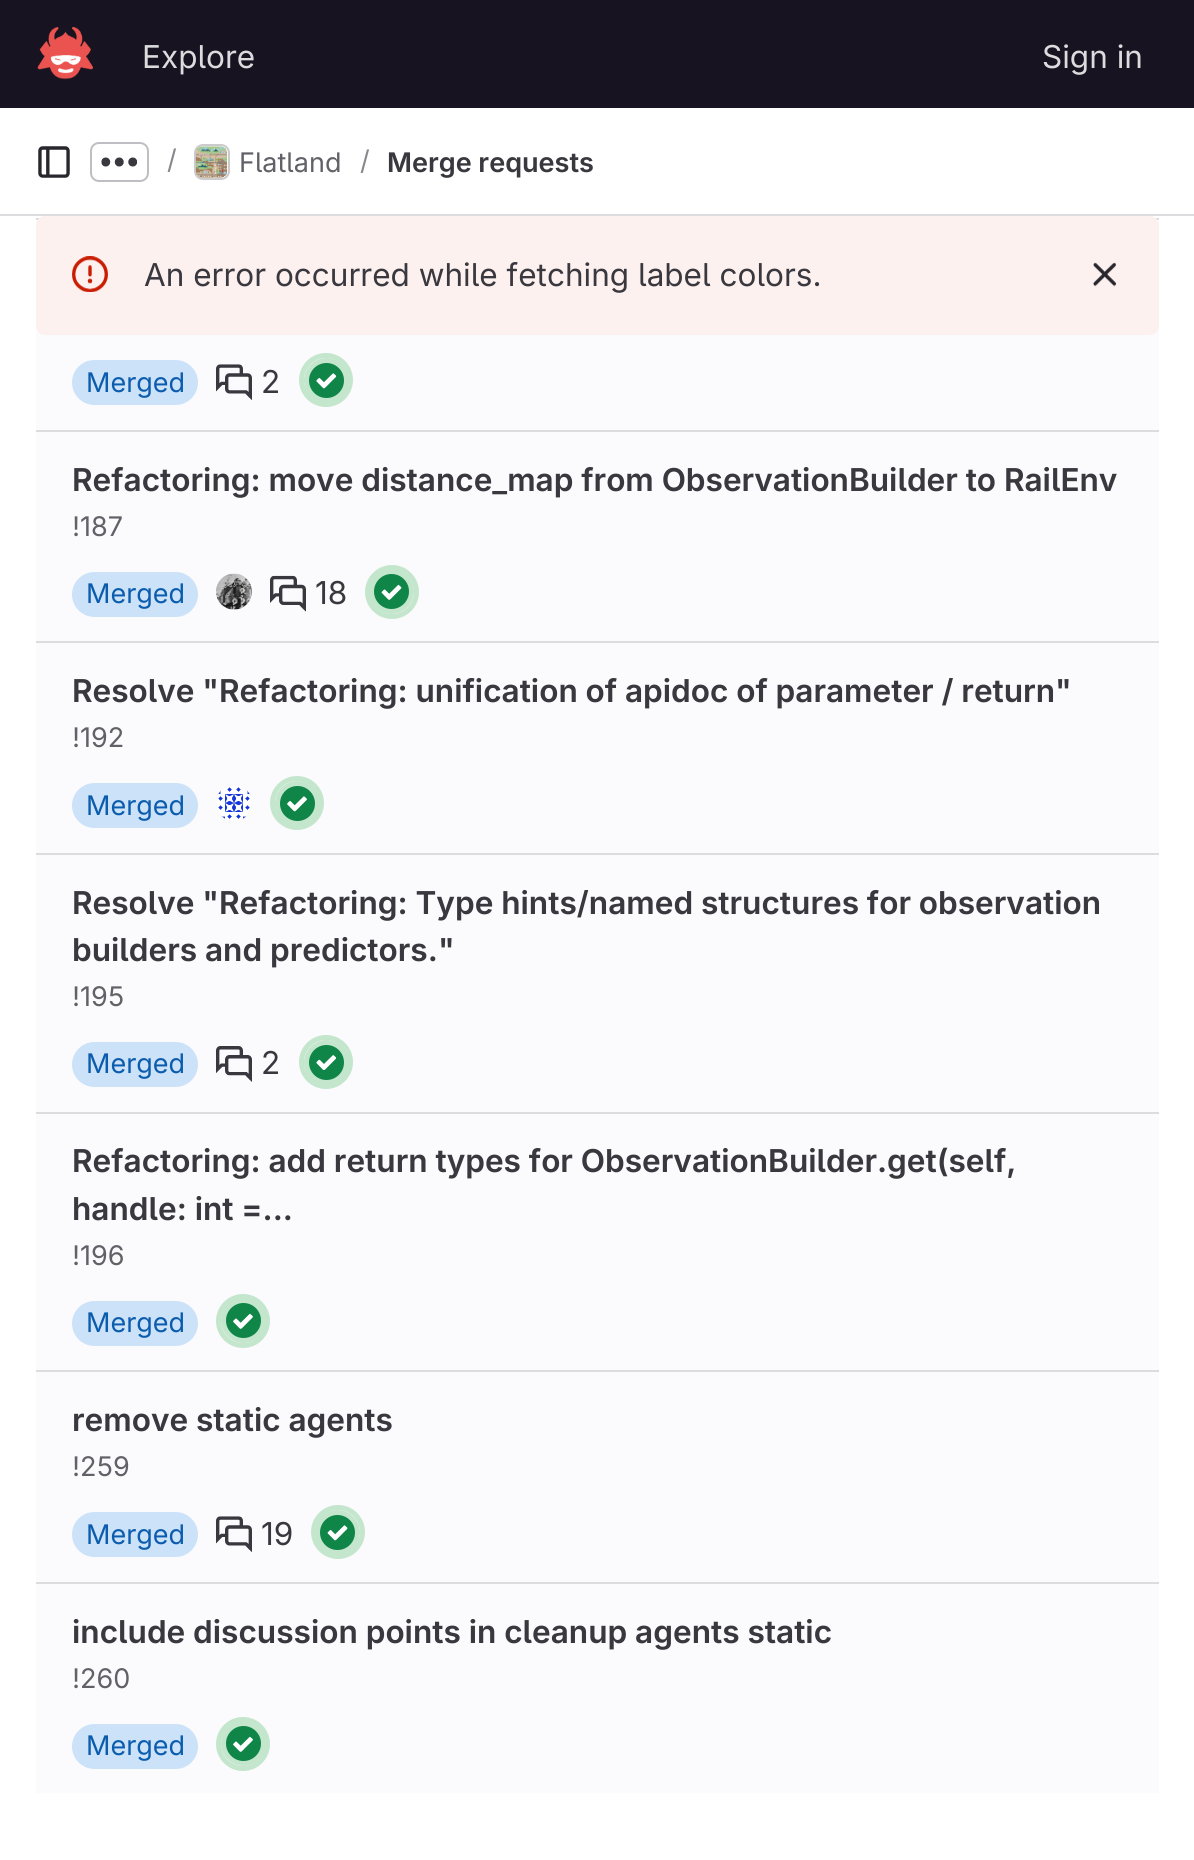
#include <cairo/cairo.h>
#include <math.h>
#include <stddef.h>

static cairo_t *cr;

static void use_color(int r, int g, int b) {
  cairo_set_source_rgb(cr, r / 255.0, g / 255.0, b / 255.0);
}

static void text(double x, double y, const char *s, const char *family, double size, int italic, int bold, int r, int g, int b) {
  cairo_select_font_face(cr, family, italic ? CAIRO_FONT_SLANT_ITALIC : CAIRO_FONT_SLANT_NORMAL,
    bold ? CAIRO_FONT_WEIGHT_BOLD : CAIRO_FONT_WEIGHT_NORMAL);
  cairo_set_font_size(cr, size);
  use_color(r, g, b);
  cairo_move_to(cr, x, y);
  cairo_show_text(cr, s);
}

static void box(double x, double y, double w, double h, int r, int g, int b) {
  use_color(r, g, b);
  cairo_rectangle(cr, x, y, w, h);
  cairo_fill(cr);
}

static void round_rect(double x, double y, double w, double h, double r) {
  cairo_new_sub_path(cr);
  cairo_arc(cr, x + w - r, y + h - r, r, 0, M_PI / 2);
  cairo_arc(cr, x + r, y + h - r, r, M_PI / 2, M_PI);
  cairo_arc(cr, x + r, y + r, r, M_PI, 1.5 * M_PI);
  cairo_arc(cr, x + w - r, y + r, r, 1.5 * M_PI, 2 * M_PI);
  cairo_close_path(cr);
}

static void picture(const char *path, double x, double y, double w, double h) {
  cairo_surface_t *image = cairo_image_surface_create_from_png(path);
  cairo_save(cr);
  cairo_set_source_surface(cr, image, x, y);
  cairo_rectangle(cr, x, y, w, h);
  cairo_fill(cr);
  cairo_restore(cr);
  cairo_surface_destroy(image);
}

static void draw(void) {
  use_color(255, 255, 255);
  cairo_paint(cr);
  box(0, 0, 1194, 108, 23, 19, 33);
  picture("img_01.png", 37, 27, 56, 53);
  box(0, 214, 1194, 2, 220, 220, 222);
  picture("img_02.png", 38, 146, 32, 32);
  round_rect(91, 143, 57, 38, 8);
  use_color(191, 191, 195);
  cairo_stroke(cr);
  picture("img_03.png", 101, 157, 37, 10);
  round_rect(195, 145, 34, 34, 8);
  use_color(220, 220, 222);
  cairo_stroke(cr);
  picture("img_04.png", 195, 146, 33, 32);
  round_rect(195, 145, 34, 34, 8);
  cairo_set_source_rgba(cr, 0.02, 0.02, 0.024, 0.08);
  cairo_stroke(cr);
  box(36, 218, 1123, 2, 220, 220, 222);
  box(36, 221, 1123, 209, 251, 250, 253);
  use_color(252, 241, 239);
  round_rect(36, 216, 1123, 119, 9);
  cairo_fill(cr);
  picture("img_05.png", 72, 256, 36, 36);
  picture("img_06.png", 1093, 262, 24, 25);
  box(36, 430, 1123, 2, 220, 220, 222);
  use_color(203, 226, 249);
  round_rect(72, 360, 126, 45, 22.5);
  cairo_fill(cr);
  picture("img_07.png", 216, 364, 36, 36);
  cairo_arc(cr, 326, 380, 24.5, 0, 2 * M_PI);
  use_color(195, 230, 205);
  cairo_set_line_width(cr, 5);
  cairo_stroke(cr);
  use_color(16, 133, 72);
  cairo_arc(cr, 326.5, 380.5, 20, 0, 2 * M_PI);
  cairo_fill_preserve(cr);
  use_color(195, 230, 205);
  cairo_stroke(cr);
  picture("img_08.png", 316, 373, 21, 16);
  box(36, 432, 1123, 421, 251, 250, 253);
  box(36, 641, 1123, 2, 220, 220, 222);
  use_color(203, 226, 249);
  round_rect(72, 572, 126, 45, 22.5);
  cairo_fill(cr);
  cairo_arc(cr, 234, 592, 17, 0, 2 * M_PI);
  use_color(231, 230, 233);
  cairo_set_line_width(cr, 2);
  cairo_stroke(cr);
  picture("img_09.png", 216, 573, 36, 37);
  picture("img_10.png", 270, 575, 36, 37);
  cairo_arc(cr, 392, 592, 24.5, 0, 2 * M_PI);
  use_color(195, 230, 205);
  cairo_set_line_width(cr, 5);
  cairo_stroke(cr);
  use_color(16, 133, 72);
  cairo_arc(cr, 391.5, 591.5, 20, 0, 2 * M_PI);
  cairo_fill_preserve(cr);
  use_color(195, 230, 205);
  cairo_stroke(cr);
  picture("img_11.png", 381, 584, 21, 16);
  box(36, 853, 1123, 2, 220, 220, 222);
  use_color(203, 226, 249);
  round_rect(72, 783, 126, 45, 22.5);
  cairo_fill(cr);
  cairo_arc(cr, 234, 803, 17, 0, 2 * M_PI);
  use_color(231, 230, 233);
  cairo_set_line_width(cr, 2);
  cairo_stroke(cr);
  picture("img_12.png", 216, 785, 36, 36);
  cairo_arc(cr, 297, 803, 24.5, 0, 2 * M_PI);
  use_color(195, 230, 205);
  cairo_set_line_width(cr, 5);
  cairo_stroke(cr);
  use_color(16, 133, 72);
  cairo_arc(cr, 297.5, 803.5, 20, 0, 2 * M_PI);
  cairo_fill_preserve(cr);
  use_color(195, 230, 205);
  cairo_stroke(cr);
  picture("img_13.png", 287, 796, 20, 16);
  box(36, 855, 1123, 257, 251, 250, 253);
  box(36, 1112, 1123, 2, 220, 220, 222);
  use_color(203, 226, 249);
  round_rect(72, 1042, 126, 45, 22.5);
  cairo_fill(cr);
  picture("img_14.png", 216, 1046, 36, 36);
  cairo_arc(cr, 326, 1062, 24.5, 0, 2 * M_PI);
  use_color(195, 230, 205);
  cairo_stroke(cr);
  use_color(16, 133, 72);
  cairo_arc(cr, 326.5, 1062.5, 20, 0, 2 * M_PI);
  cairo_fill_preserve(cr);
  use_color(195, 230, 205);
  cairo_stroke(cr);
  picture("img_15.png", 316, 1055, 21, 15);
  box(36, 1114, 1123, 468, 251, 250, 253);
  box(36, 1370, 1123, 2, 220, 220, 222);
  use_color(203, 226, 249);
  round_rect(72, 1301, 126, 45, 22.5);
  cairo_fill(cr);
  cairo_arc(cr, 243, 1321, 24.5, 0, 2 * M_PI);
  use_color(195, 230, 205);
  cairo_stroke(cr);
  use_color(16, 133, 72);
  cairo_arc(cr, 243.5, 1320.5, 20, 0, 2 * M_PI);
  cairo_fill_preserve(cr);
  use_color(195, 230, 205);
  cairo_stroke(cr);
  picture("img_16.png", 233, 1313, 20, 16);
  box(36, 1582, 1123, 2, 220, 220, 222);
  use_color(203, 226, 249);
  round_rect(72, 1512, 126, 45, 22.5);
  cairo_fill(cr);
  picture("img_07.png", 216, 1516, 36, 36);
  cairo_arc(cr, 338, 1532, 24.5, 0, 2 * M_PI);
  use_color(195, 230, 205);
  cairo_stroke(cr);
  use_color(16, 133, 72);
  cairo_arc(cr, 337.5, 1532.5, 20, 0, 2 * M_PI);
  cairo_fill_preserve(cr);
  use_color(195, 230, 205);
  cairo_stroke(cr);
  picture("img_17.png", 327, 1525, 21, 16);
  box(36, 1584, 1123, 209, 251, 250, 253);
  use_color(203, 226, 249);
  round_rect(72, 1724, 126, 45, 22.5);
  cairo_fill(cr);
  cairo_arc(cr, 243, 1744, 24.5, 0, 2 * M_PI);
  use_color(195, 230, 205);
  cairo_stroke(cr);
  use_color(16, 133, 72);
  cairo_arc(cr, 243.5, 1743.5, 20, 0, 2 * M_PI);
  cairo_fill_preserve(cr);
  use_color(195, 230, 205);
  cairo_stroke(cr);
  picture("img_18.png", 233, 1736, 20, 16);
  text(142, 68, "Explore", "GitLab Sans", 31.5, 0, 0, 220, 220, 222);
  text(1042, 68, "Sign in", "GitLab Sans", 31.5, 0, 0, 220, 220, 222);
  text(167, 169, "/", "GitLab Sans", 27, 0, 0, 137, 136, 141);
  text(239, 172, "Flatland", "GitLab Sans", 27, 0, 0, 98, 97, 104);
  text(360, 170, "/", "GitLab Sans", 27, 0, 0, 137, 136, 141);
  text(387, 172, "Merge requests", "GitLab Sans SemiBold", 27, 0, 0, 58, 56, 63);
  text(144, 286, "An error occurred while fetching label colors.", "GitLab Sans", 31.5, 0, 0, 58, 56, 63);
  text(86, 392, "Merged", "GitLab Sans", 27, 0, 0, 11, 92, 173);
  text(261, 393, "2", "GitLab Sans", 31.5, 0, 0, 58, 56, 63);
  text(72, 491, "Refactoring: move distance_map from ObservationBuilder to RailEnv", "GitLab Sans SemiBold", 31.5, 0, 0, 58, 56, 63);
  text(72, 536, "!187", "GitLab Sans", 27, 0, 0, 98, 97, 104);
  text(86, 603, "Merged", "GitLab Sans", 27, 0, 0, 11, 92, 173);
  text(315, 604, "18", "GitLab Sans", 31.5, 0, 0, 58, 56, 63);
  text(72, 702, "Resolve \"Refactoring: unification of apidoc of parameter / return\"", "GitLab Sans SemiBold", 31.5, 0, 0, 58, 56, 63);
  text(72, 747, "!192", "GitLab Sans", 27, 0, 0, 98, 97, 104);
  text(86, 815, "Merged", "GitLab Sans", 27, 0, 0, 11, 92, 173);
  text(72, 914, "Resolve \"Refactoring: Type hints/named structures for observation", "GitLab Sans SemiBold", 31.5, 0, 0, 58, 56, 63);
  text(72, 961, "builders and predictors.\"", "GitLab Sans SemiBold", 31.5, 0, 0, 58, 56, 63);
  text(72, 1006, "!195", "GitLab Sans", 27, 0, 0, 98, 97, 104);
  text(86, 1073, "Merged", "GitLab Sans", 27, 0, 0, 11, 92, 173);
  text(261, 1074, "2", "GitLab Sans", 31.5, 0, 0, 58, 56, 63);
  text(72, 1172, "Refactoring: add return types for ObservationBuilder.get(self,", "GitLab Sans SemiBold", 31.5, 0, 0, 58, 56, 63);
  text(72, 1220, "handle: int =...", "GitLab Sans SemiBold", 31.5, 0, 0, 58, 56, 63);
  text(72, 1265, "!196", "GitLab Sans", 27, 0, 0, 98, 97, 104);
  text(86, 1332, "Merged", "GitLab Sans", 27, 0, 0, 11, 92, 173);
  text(72, 1431, "remove static agents", "GitLab Sans SemiBold", 31.5, 0, 0, 58, 56, 63);
  text(72, 1476, "!259", "GitLab Sans", 27, 0, 0, 98, 97, 104);
  text(86, 1544, "Merged", "GitLab Sans", 27, 0, 0, 11, 92, 173);
  text(261, 1545, "19", "GitLab Sans", 31.5, 0, 0, 58, 56, 63);
  text(72, 1643, "include discussion points in cleanup agents static", "GitLab Sans SemiBold", 31.5, 0, 0, 58, 56, 63);
  text(72, 1688, "!260", "GitLab Sans", 27, 0, 0, 98, 97, 104);
  text(86, 1755, "Merged", "GitLab Sans", 27, 0, 0, 11, 92, 173);
}

int main(void) {
  cairo_surface_t *surface = cairo_image_surface_create(CAIRO_FORMAT_RGB24, 1194, 1860);
  cr = cairo_create(surface);
  cairo_font_options_t *options = cairo_font_options_create();
  cairo_font_options_set_hint_metrics(options, CAIRO_HINT_METRICS_OFF);
  cairo_font_options_set_hint_style(options, CAIRO_HINT_STYLE_NONE);
  cairo_set_font_options(cr, options);
  cairo_set_miter_limit(cr, 4);
  draw();
  cairo_surface_write_to_png(surface, "out.png");
  cairo_font_options_destroy(options);
  cairo_destroy(cr);
  cairo_surface_destroy(surface);
  return 0;
}
